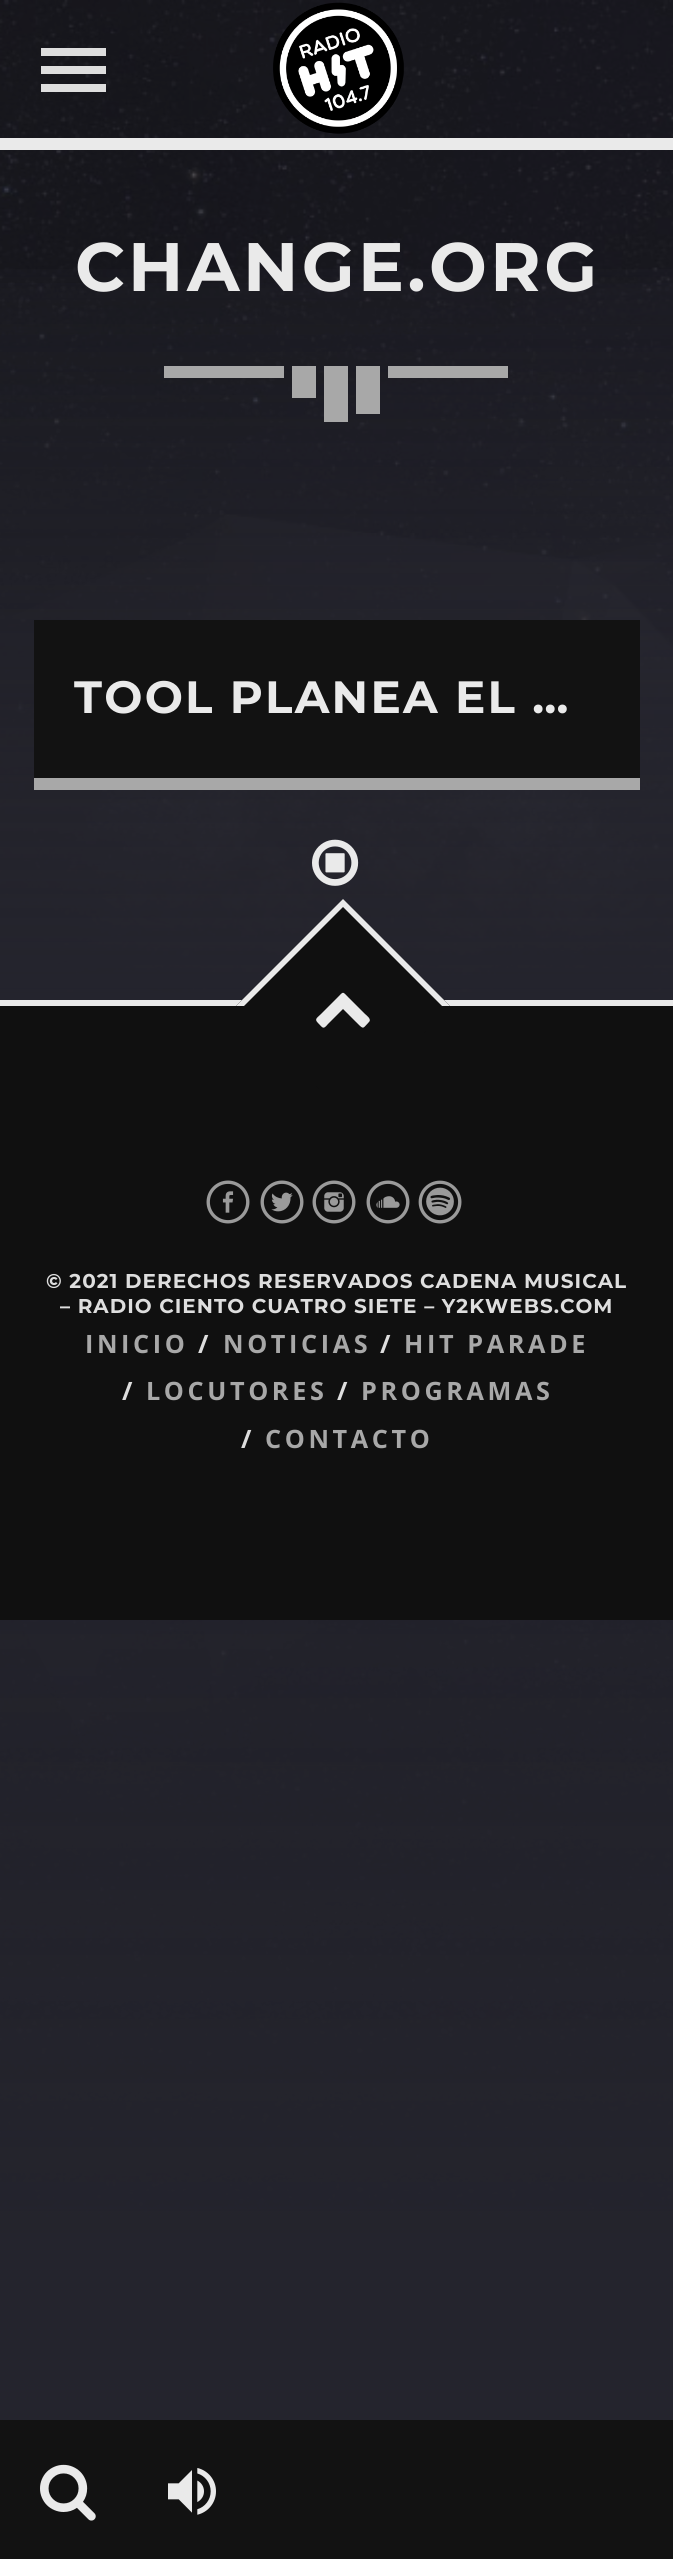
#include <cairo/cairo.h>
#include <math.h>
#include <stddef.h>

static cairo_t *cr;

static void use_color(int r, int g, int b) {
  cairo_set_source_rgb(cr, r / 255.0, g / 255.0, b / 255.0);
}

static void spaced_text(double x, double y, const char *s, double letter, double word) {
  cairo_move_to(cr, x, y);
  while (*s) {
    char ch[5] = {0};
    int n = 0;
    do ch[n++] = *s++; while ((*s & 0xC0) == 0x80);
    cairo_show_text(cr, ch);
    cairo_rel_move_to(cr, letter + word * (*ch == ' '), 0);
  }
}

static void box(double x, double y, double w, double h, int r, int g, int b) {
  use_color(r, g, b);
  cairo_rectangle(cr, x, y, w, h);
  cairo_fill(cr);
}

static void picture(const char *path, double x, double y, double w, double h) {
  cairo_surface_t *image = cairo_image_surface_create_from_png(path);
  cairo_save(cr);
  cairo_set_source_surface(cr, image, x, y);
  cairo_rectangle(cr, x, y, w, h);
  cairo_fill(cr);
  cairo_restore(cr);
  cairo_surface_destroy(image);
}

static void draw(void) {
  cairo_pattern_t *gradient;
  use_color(36, 36, 45);
  cairo_paint(cr);
  picture("img_04.png", 0, 0, 673, 2235);
  use_color(222, 222, 222);
  cairo_new_path(cr);
  cairo_move_to(cr, 41, 92);
  cairo_line_to(cr, 106, 92);
  cairo_line_to(cr, 106, 84);
  cairo_line_to(cr, 41, 84);
  cairo_close_path(cr);
  cairo_move_to(cr, 41, 74);
  cairo_line_to(cr, 106, 74);
  cairo_line_to(cr, 106, 66);
  cairo_line_to(cr, 41, 66);
  cairo_close_path(cr);
  cairo_move_to(cr, 41, 48);
  cairo_line_to(cr, 41, 56);
  cairo_line_to(cr, 106, 56);
  cairo_line_to(cr, 106, 48);
  cairo_close_path(cr);
  cairo_fill(cr);
  picture("img_01.png", 273, 2, 131, 132);
  box(0, 2420, 673, 139, 18, 18, 18);
  picture("img_02.png", 40, 2464, 56, 57);
  picture("img_03.png", 168, 2468, 48, 47);
  box(0, 138, 673, 12, 234, 234, 234);
  gradient = cairo_pattern_create_linear(337, 0, 337, 2234);
  cairo_pattern_add_color_stop_rgba(gradient, 0, 0.141, 0.141, 0.176, 0);
  cairo_pattern_add_color_stop_rgba(gradient, 1, 0.141, 0.141, 0.176, 0.44);
  cairo_set_source(cr, gradient);
  cairo_pattern_destroy(gradient);
  cairo_rectangle(cr, 0, 568, 673, 1666);
  cairo_fill(cr);
  gradient = cairo_pattern_create_linear(337, 0, 337, 2304);
  cairo_pattern_add_color_stop_rgba(gradient, 0, 0.141, 0.141, 0.176, 0);
  cairo_pattern_add_color_stop_rgba(gradient, 1, 0.141, 0.141, 0.176, 1);
  cairo_set_source(cr, gradient);
  cairo_pattern_destroy(gradient);
  cairo_rectangle(cr, 0, 283, 673, 1952);
  cairo_fill(cr);
  gradient = cairo_pattern_create_linear(337, 146, 337, 1000);
  cairo_pattern_add_color_stop_rgba(gradient, 0, 0.141, 0.141, 0.176, 0);
  cairo_pattern_add_color_stop_rgba(gradient, 1, 0.141, 0.141, 0.176, 1);
  cairo_set_source(cr, gradient);
  cairo_pattern_destroy(gradient);
  cairo_rectangle(cr, 0, 269, 673, 731);
  cairo_fill(cr);
  box(164, 366, 120, 12, 168, 168, 168);
  box(324, 366, 24, 56, 168, 168, 168);
  box(292, 366, 24, 32, 168, 168, 168);
  box(356, 366, 24, 48, 168, 168, 168);
  box(388, 366, 120, 12, 168, 168, 168);
  box(34, 778, 606, 12, 168, 168, 168);
  box(34, 620, 606, 158, 18, 18, 18);
  picture("img_05.png", 312, 839, 47, 47);
  box(0, 1006, 673, 614, 16, 16, 16);
  box(0, 1000, 673, 6, 234, 234, 234);
  use_color(16, 16, 16);
  cairo_new_path(cr);
  cairo_move_to(cr, 343, 899);
  cairo_line_to(cr, 450, 1006);
  cairo_line_to(cr, 343, 1114);
  cairo_line_to(cr, 236, 1006);
  cairo_close_path(cr);
  cairo_fill(cr);
  use_color(234, 234, 234);
  cairo_new_path(cr);
  cairo_move_to(cr, 343, 899);
  cairo_line_to(cr, 450, 1006);
  cairo_line_to(cr, 442, 1006);
  cairo_line_to(cr, 343, 907);
  cairo_close_path(cr);
  cairo_fill(cr);
  cairo_new_path(cr);
  cairo_move_to(cr, 236, 1006);
  cairo_line_to(cr, 343, 899);
  cairo_line_to(cr, 343, 907);
  cairo_line_to(cr, 244, 1006);
  cairo_close_path(cr);
  cairo_fill(cr);
  cairo_new_path(cr);
  cairo_move_to(cr, 369, 1022);
  cairo_curve_to(cr, 363, 1028, 364, 1030, 358, 1024);
  cairo_line_to(cr, 343, 1009);
  cairo_line_to(cr, 328, 1024);
  cairo_curve_to(cr, 323, 1030, 323, 1028, 318, 1023);
  cairo_curve_to(cr, 314, 1019, 317, 1018, 321, 1014);
  cairo_line_to(cr, 337, 998);
  cairo_curve_to(cr, 344, 991, 342, 991, 349, 998);
  cairo_line_to(cr, 365, 1014);
  cairo_curve_to(cr, 366, 1015, 372, 1019, 369, 1022);
  cairo_close_path(cr);
  cairo_fill(cr);
  picture("img_06.png", 206, 1180, 44, 44);
  picture("img_07.png", 260, 1180, 44, 44);
  picture("img_08.png", 312, 1180, 44, 44);
  picture("img_09.png", 366, 1180, 44, 44);
  picture("img_10.png", 418, 1180, 44, 44);
  cairo_select_font_face(cr, "Montserrat", CAIRO_FONT_SLANT_NORMAL, CAIRO_FONT_WEIGHT_BOLD);
  cairo_set_font_size(cr, 68.5);
  spaced_text(75, 291, "CHANGE.ORG", 3.5, 0);
  cairo_save(cr);
  cairo_rectangle(cr, 74, 664, 526, 68);
  cairo_clip(cr);
  cairo_set_font_size(cr, 45.25);
  spaced_text(74, 713, "TOOL PLANEA EL …", 2.25, 0);
  cairo_restore(cr);
  cairo_set_font_size(cr, 20);
  use_color(222, 222, 222);
  spaced_text(46, 1288, "© 2021 DERECHOS RESERVADOS CADENA MUSICAL", 1, 0);
  spaced_text(60, 1313, "– RADIO CIENTO CUATRO SIETE – Y2KWEBS.COM", 1, 0);
  cairo_select_font_face(cr, "Open Sans", CAIRO_FONT_SLANT_NORMAL, CAIRO_FONT_WEIGHT_BOLD);
  cairo_set_font_size(cr, 25.25);
  use_color(168, 168, 168);
  spaced_text(85, 1353, "INICIO", 3.6, 0);
  use_color(222, 222, 222);
  spaced_text(198, 1353, "/", 3.6, 0);
  use_color(168, 168, 168);
  spaced_text(223, 1353, "NOTICIAS", 3.6, 0);
  use_color(222, 222, 222);
  spaced_text(380, 1353, "/", 3.6, 0);
  use_color(168, 168, 168);
  spaced_text(404, 1353, "HIT PARADE", 3.6, 0);
  use_color(222, 222, 222);
  spaced_text(122, 1400, "/", 3.6, 0);
  use_color(168, 168, 168);
  spaced_text(146, 1400, "LOCUTORES", 3.6, 0);
  use_color(222, 222, 222);
  spaced_text(337, 1400, "/", 3.6, 0);
  use_color(168, 168, 168);
  spaced_text(361, 1400, "PROGRAMAS", 3.6, 0);
  use_color(222, 222, 222);
  spaced_text(241, 1448, "/", 3.6, 0);
  use_color(168, 168, 168);
  spaced_text(265, 1448, "CONTACTO", 3.6, 0);
}

int main(void) {
  cairo_surface_t *surface = cairo_image_surface_create(CAIRO_FORMAT_RGB24, 673, 2559);
  cr = cairo_create(surface);
  cairo_font_options_t *options = cairo_font_options_create();
  cairo_font_options_set_hint_metrics(options, CAIRO_HINT_METRICS_OFF);
  cairo_font_options_set_hint_style(options, CAIRO_HINT_STYLE_NONE);
  cairo_set_font_options(cr, options);
  cairo_set_miter_limit(cr, 4);
  draw();
  cairo_surface_write_to_png(surface, "out.png");
  cairo_font_options_destroy(options);
  cairo_destroy(cr);
  cairo_surface_destroy(surface);
  return 0;
}
